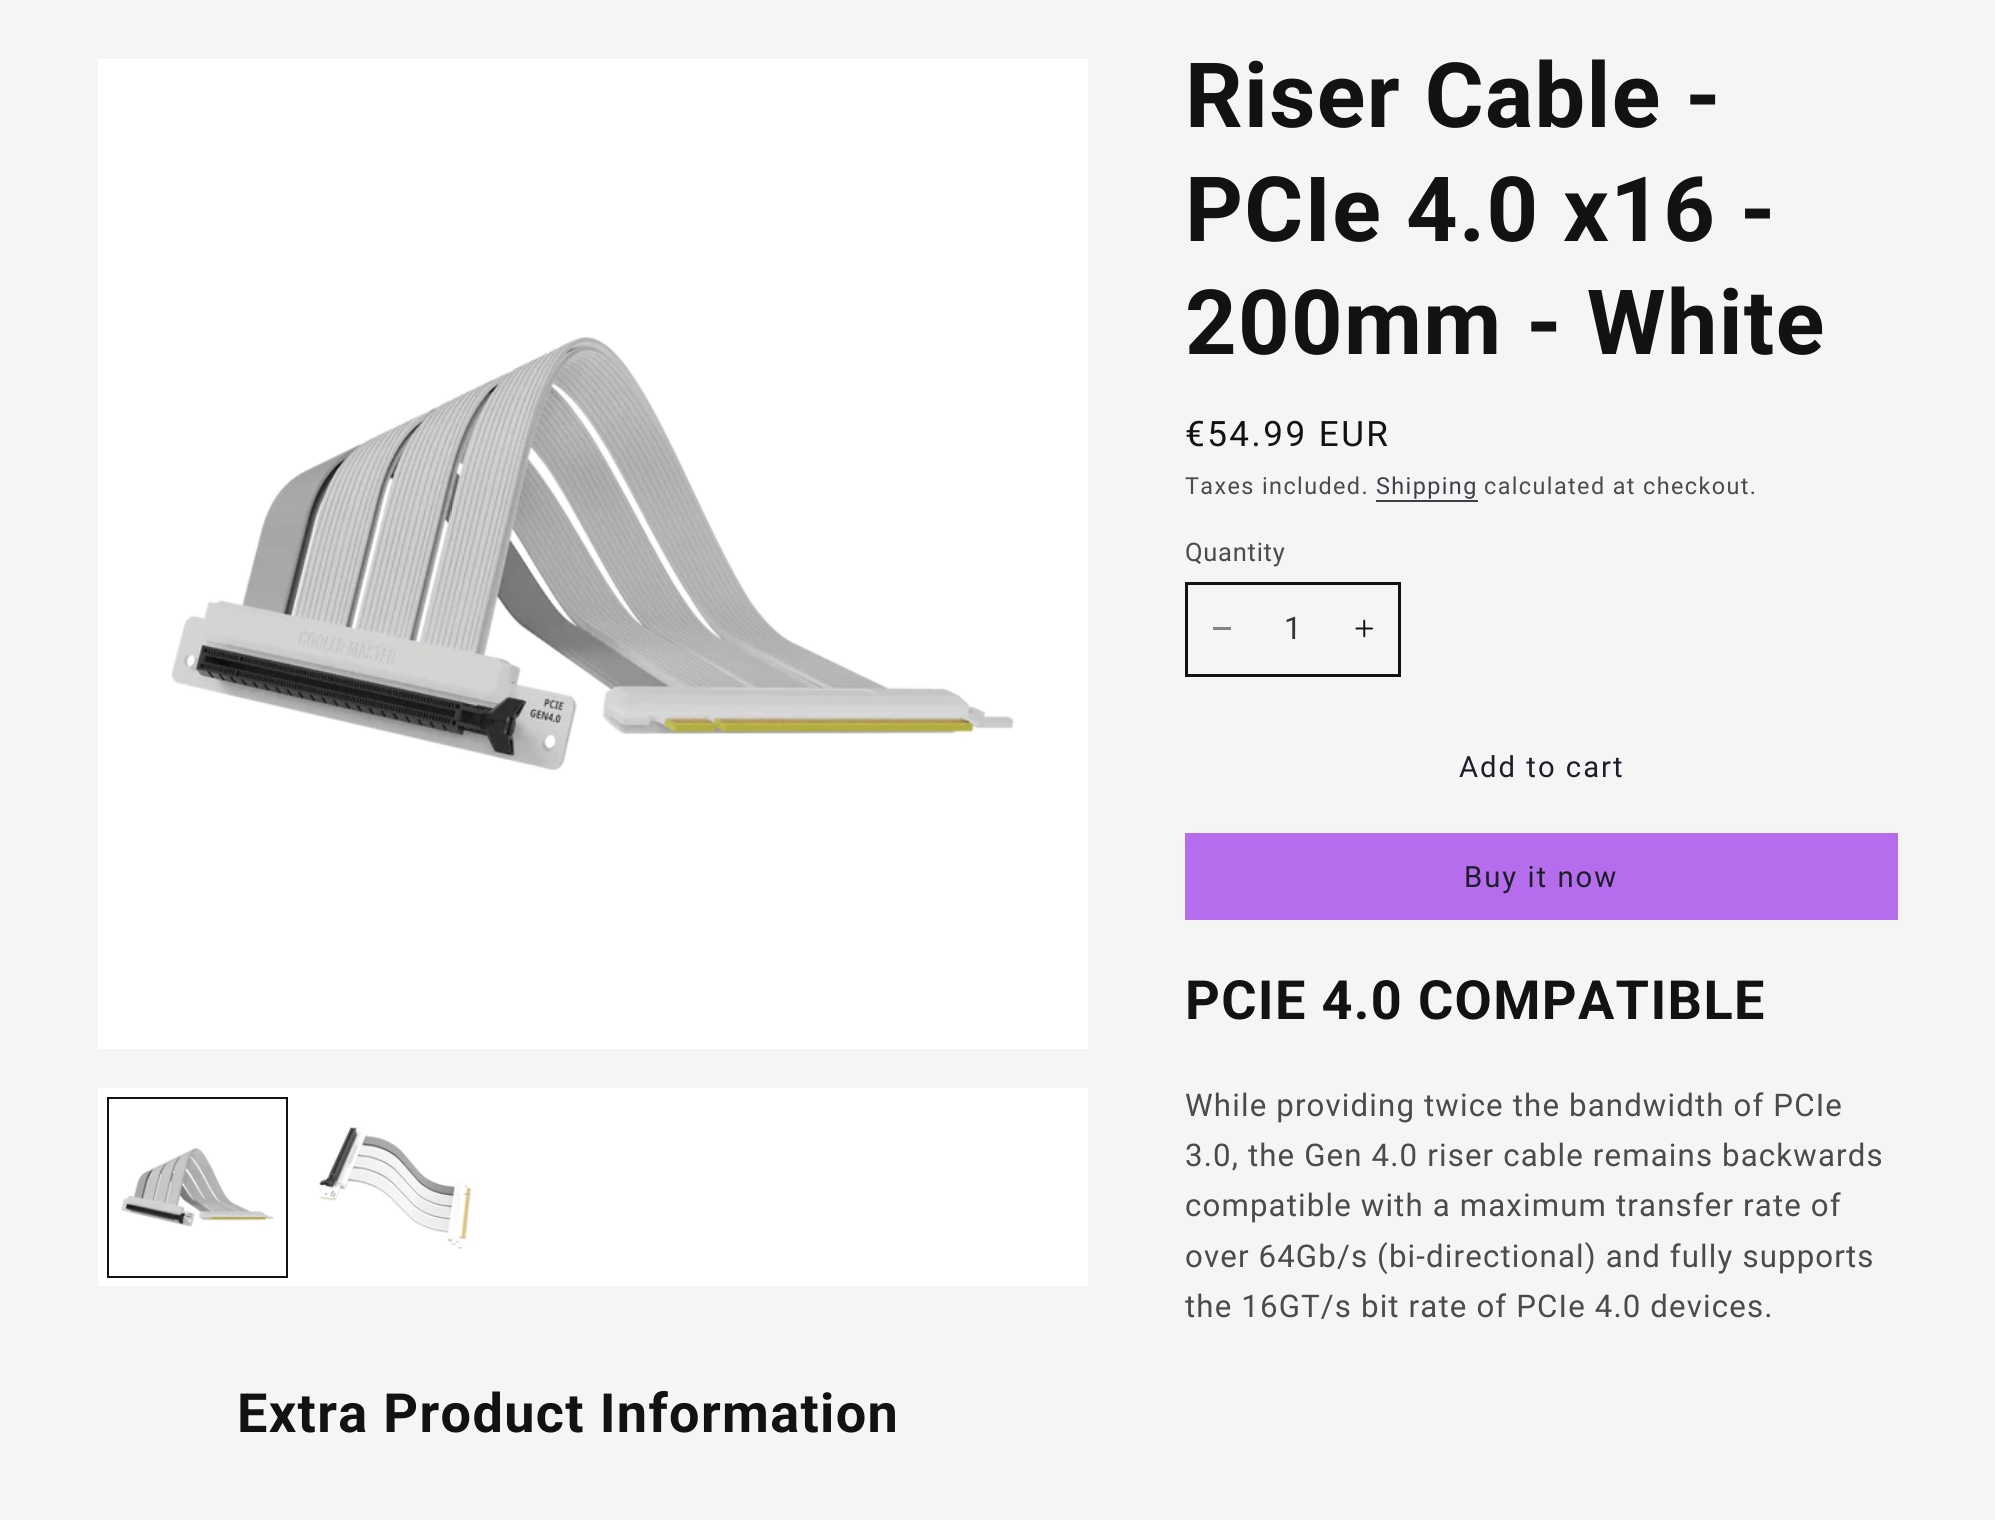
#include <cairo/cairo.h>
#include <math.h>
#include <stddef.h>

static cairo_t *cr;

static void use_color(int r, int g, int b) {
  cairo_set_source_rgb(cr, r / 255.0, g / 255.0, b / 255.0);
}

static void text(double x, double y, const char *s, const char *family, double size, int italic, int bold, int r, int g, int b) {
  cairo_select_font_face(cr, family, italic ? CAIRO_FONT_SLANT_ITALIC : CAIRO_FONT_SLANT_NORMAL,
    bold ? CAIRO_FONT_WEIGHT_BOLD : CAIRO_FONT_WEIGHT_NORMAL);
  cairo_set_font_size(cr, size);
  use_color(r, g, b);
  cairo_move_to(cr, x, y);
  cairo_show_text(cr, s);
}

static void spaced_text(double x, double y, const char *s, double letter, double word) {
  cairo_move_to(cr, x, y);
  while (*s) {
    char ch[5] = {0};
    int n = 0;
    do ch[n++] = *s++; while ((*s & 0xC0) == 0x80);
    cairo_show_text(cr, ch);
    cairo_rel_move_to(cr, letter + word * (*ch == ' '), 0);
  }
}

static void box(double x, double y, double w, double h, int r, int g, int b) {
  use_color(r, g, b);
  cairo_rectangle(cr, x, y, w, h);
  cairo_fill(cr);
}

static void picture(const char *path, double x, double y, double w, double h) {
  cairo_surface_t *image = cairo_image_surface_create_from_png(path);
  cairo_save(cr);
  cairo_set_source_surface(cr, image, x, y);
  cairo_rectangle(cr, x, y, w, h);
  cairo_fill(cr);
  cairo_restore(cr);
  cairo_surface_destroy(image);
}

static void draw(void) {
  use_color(245, 245, 245);
  cairo_paint(cr);
  box(98, 59, 990, 990, 255, 255, 255);
  picture("img_01.png", 171, 336, 843, 435);
  box(98, 1088, 990, 198, 255, 255, 255);
  cairo_rectangle(cr, 108, 1098, 179, 179);
  use_color(18, 18, 18);
  cairo_stroke(cr);
  picture("img_02.png", 121, 1147, 153, 80);
  picture("img_03.png", 319, 1126, 153, 123);
  box(1376, 500, 102, 2, 62, 62, 71);
  box(1213, 627, 18, 3, 132, 132, 132);
  picture("img_04.png", 1355, 619, 18, 19);
  cairo_rectangle(cr, 1186.5, 583.5, 213, 92);
  use_color(18, 18, 18);
  cairo_set_line_width(cr, 3);
  cairo_stroke(cr);
  box(1185, 833, 713, 87, 182, 109, 237);
  cairo_select_font_face(cr, "Roboto", CAIRO_FONT_SLANT_NORMAL, CAIRO_FONT_WEIGHT_BOLD);
  cairo_set_font_size(cr, 90);
  use_color(18, 18, 18);
  spaced_text(1185, 127, "Riser Cable -", 1.35, 0);
  spaced_text(1185, 241, "PCIe 4.0 x16 -", 1.35, 0);
  spaced_text(1185, 354, "200mm - White", 1.35, 0);
  cairo_select_font_face(cr, "Roboto", CAIRO_FONT_SLANT_NORMAL, CAIRO_FONT_WEIGHT_NORMAL);
  cairo_set_font_size(cr, 35);
  spaced_text(1185, 446, "€54.99 EUR", 2.5, 0);
  cairo_set_font_size(cr, 23.4);
  use_color(75, 75, 75);
  spaced_text(1185, 494, "Taxes included.", 1.4, 0);
  use_color(62, 62, 71);
  spaced_text(1376, 494, "Shipping", 1.4, 0);
  use_color(75, 75, 75);
  spaced_text(1484, 494, "calculated at checkout.", 1.4, 0);
  cairo_set_font_size(cr, 25.5);
  spaced_text(1185, 561, "Quantity", 0.75, 0);
  text(1284, 639, "1", "Roboto", 31.2, 0, 0, 52, 52, 52);
  cairo_set_font_size(cr, 29.25);
  use_color(30, 30, 40);
  spaced_text(1459, 777, "Add to cart", 2, 0);
  spaced_text(1464, 887, "Buy it now", 2, 0);
  cairo_select_font_face(cr, "Roboto", CAIRO_FONT_SLANT_NORMAL, CAIRO_FONT_WEIGHT_BOLD);
  cairo_set_font_size(cr, 54);
  use_color(18, 18, 18);
  spaced_text(1185, 1019, "PCIE 4.0 COMPATIBLE", 1.35, 0);
  cairo_select_font_face(cr, "Roboto", CAIRO_FONT_SLANT_NORMAL, CAIRO_FONT_WEIGHT_NORMAL);
  cairo_set_font_size(cr, 31.2);
  use_color(75, 75, 75);
  spaced_text(1185, 1116, "While providing twice the bandwidth of PCIe", 1.15, 0);
  spaced_text(1185, 1166, "3.0, the Gen 4.0 riser cable remains backwards", 1.15, 0);
  spaced_text(1185, 1216, "compatible with a maximum transfer rate of", 1.15, 0);
  spaced_text(1185, 1267, "over 64Gb/s (bi-directional) and fully supports", 1.15, 0);
  spaced_text(1185, 1317, "the 16GT/s bit rate of PCIe 4.0 devices.", 1.15, 0);
  cairo_select_font_face(cr, "Roboto", CAIRO_FONT_SLANT_NORMAL, CAIRO_FONT_WEIGHT_BOLD);
  cairo_set_font_size(cr, 54);
  use_color(18, 18, 18);
  spaced_text(237, 1432, "Extra Product Information", 1.35, 0);
}

int main(void) {
  cairo_surface_t *surface = cairo_image_surface_create(CAIRO_FORMAT_RGB24, 1995, 1520);
  cr = cairo_create(surface);
  cairo_font_options_t *options = cairo_font_options_create();
  cairo_font_options_set_hint_metrics(options, CAIRO_HINT_METRICS_OFF);
  cairo_font_options_set_hint_style(options, CAIRO_HINT_STYLE_NONE);
  cairo_set_font_options(cr, options);
  cairo_set_miter_limit(cr, 4);
  draw();
  cairo_surface_write_to_png(surface, "out.png");
  cairo_font_options_destroy(options);
  cairo_destroy(cr);
  cairo_surface_destroy(surface);
  return 0;
}
